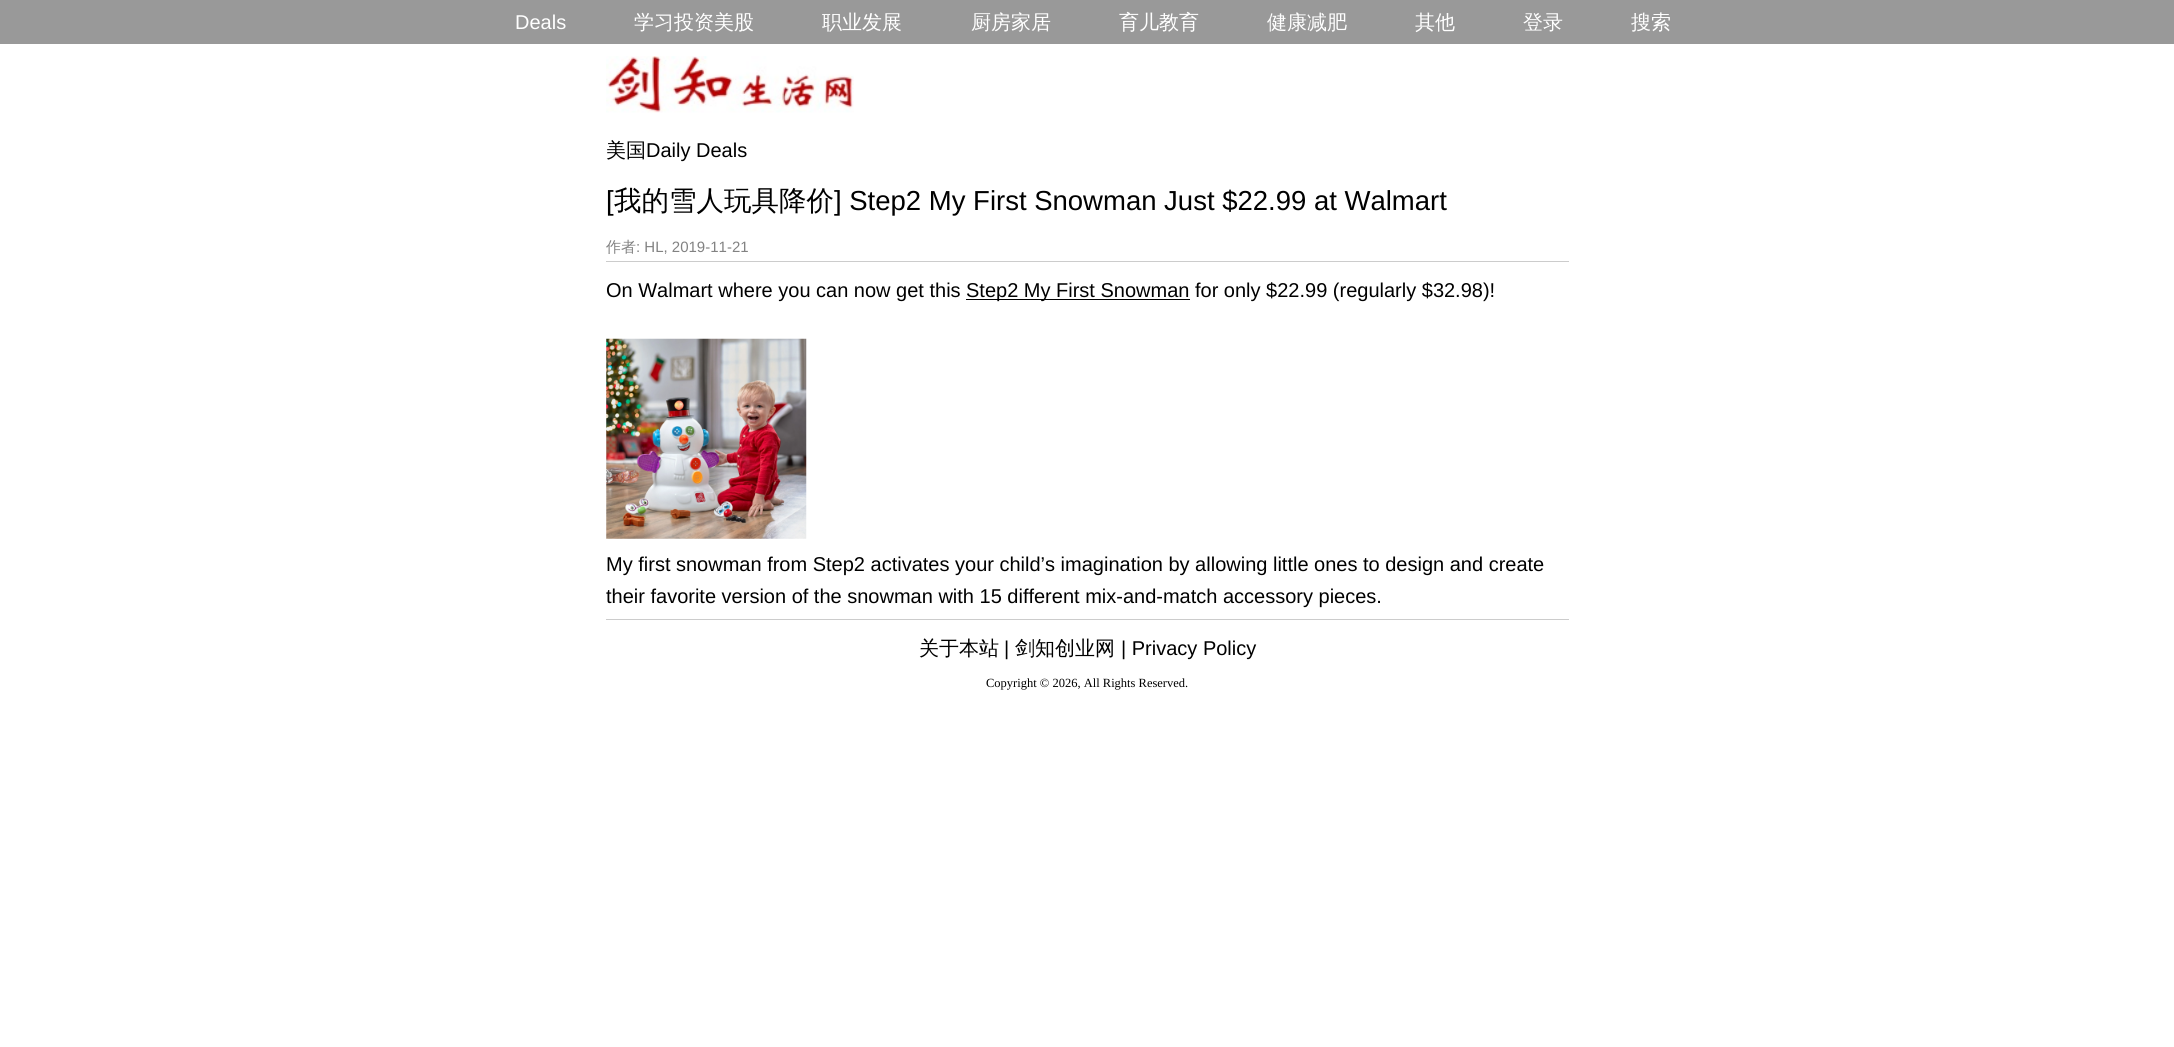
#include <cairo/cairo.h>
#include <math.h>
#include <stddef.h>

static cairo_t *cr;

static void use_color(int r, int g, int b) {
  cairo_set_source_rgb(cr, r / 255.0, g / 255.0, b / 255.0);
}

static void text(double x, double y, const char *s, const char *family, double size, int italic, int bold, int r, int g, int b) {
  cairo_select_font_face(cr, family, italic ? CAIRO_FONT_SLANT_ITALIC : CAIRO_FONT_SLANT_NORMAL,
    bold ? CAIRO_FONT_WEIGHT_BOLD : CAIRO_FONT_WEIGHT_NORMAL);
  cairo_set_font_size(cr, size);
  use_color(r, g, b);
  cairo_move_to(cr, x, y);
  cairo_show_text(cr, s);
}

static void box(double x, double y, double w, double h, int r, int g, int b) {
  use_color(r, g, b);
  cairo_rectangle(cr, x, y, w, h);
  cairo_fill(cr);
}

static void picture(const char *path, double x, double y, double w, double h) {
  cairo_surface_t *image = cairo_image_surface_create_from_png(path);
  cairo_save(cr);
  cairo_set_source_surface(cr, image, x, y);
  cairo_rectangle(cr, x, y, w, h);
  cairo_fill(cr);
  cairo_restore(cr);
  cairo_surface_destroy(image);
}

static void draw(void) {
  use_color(255, 255, 255);
  cairo_paint(cr);
  box(0, 0, 2174, 44, 153, 153, 153);
  picture("img_01.png", 606, 56, 248, 57);
  box(606, 261, 963, 1, 204, 204, 204);
  box(606, 619, 963, 1, 204, 204, 204);
  box(966, 299, 224, 1, 0, 0, 0);
  picture("img_02.png", 606, 338, 201, 201);
  text(515, 29, "Deals", "Liberation Sans", 20, 0, 0, 255, 255, 255);
  text(634, 29, "学习投资美股", "WenQuanYi Zen Hei Medium", 20, 0, 0, 255, 255, 255);
  text(822, 29, "职业发展", "WenQuanYi Zen Hei Medium", 20, 0, 0, 255, 255, 255);
  text(971, 29, "厨房家居", "WenQuanYi Zen Hei Medium", 20, 0, 0, 255, 255, 255);
  text(1119, 29, "育儿教育", "WenQuanYi Zen Hei Medium", 20, 0, 0, 255, 255, 255);
  text(1267, 29, "健康减肥", "WenQuanYi Zen Hei Medium", 20, 0, 0, 255, 255, 255);
  text(1415, 29, "其他", "WenQuanYi Zen Hei Medium", 20, 0, 0, 255, 255, 255);
  text(1523, 29, "登录", "WenQuanYi Zen Hei Medium", 20, 0, 0, 255, 255, 255);
  text(1631, 29, "搜索", "WenQuanYi Zen Hei Medium", 20, 0, 0, 255, 255, 255);
  text(606, 157, "美国", "WenQuanYi Zen Hei Medium", 20, 0, 0, 0, 0, 0);
  text(646, 157, "Daily Deals", "Liberation Sans", 20, 0, 0, 0, 0, 0);
  text(606, 210, "[", "Liberation Sans", 27.5, 0, 0, 0, 0, 0);
  text(614, 210, "我的雪人玩具降价", "WenQuanYi Zen Hei Medium", 27.5, 0, 0, 0, 0, 0);
  text(834, 210, "] Step2 My First Snowman Just $22.99 at Walmart", "Liberation Sans", 27.5, 0, 0, 0, 0, 0);
  text(606, 252, "作者", "WenQuanYi Zen Hei Medium", 15, 0, 0, 130, 130, 130);
  text(636, 252, ": HL, 2019-11-21", "Liberation Sans", 15, 0, 0, 130, 130, 130);
  text(606, 297, "On Walmart where you can now get this", "Liberation Sans", 20, 0, 0, 0, 0, 0);
  text(966, 297, "Step2 My First Snowman for only $22.99 (regularly $32.98)!", "Liberation Sans", 20, 0, 0, 0, 0, 0);
  text(606, 571, "My first snowman from Step2 activates your child’s imagination by allowing little ones to design and create", "Liberation Sans", 20, 0, 0, 0, 0, 0);
  text(606, 603, "their favorite version of the snowman with 15 different mix-and-match accessory pieces.", "Liberation Sans", 20, 0, 0, 0, 0, 0);
  text(919, 655, "关于本站", "WenQuanYi Zen Hei Medium", 20, 0, 0, 0, 0, 0);
  text(1004, 655, "|", "Liberation Sans", 20, 0, 0, 0, 0, 0);
  text(1015, 655, "剑知创业网", "WenQuanYi Zen Hei Medium", 20, 0, 0, 0, 0, 0);
  text(1121, 655, "| Privacy Policy", "Liberation Sans", 20, 0, 0, 0, 0, 0);
  text(986, 687, "Copyright © 2026, All Rights Reserved.", "Liberation Serif", 12.5, 0, 0, 0, 0, 0);
}

int main(void) {
  cairo_surface_t *surface = cairo_image_surface_create(CAIRO_FORMAT_RGB24, 2174, 1047);
  cr = cairo_create(surface);
  cairo_font_options_t *options = cairo_font_options_create();
  cairo_font_options_set_hint_metrics(options, CAIRO_HINT_METRICS_OFF);
  cairo_font_options_set_hint_style(options, CAIRO_HINT_STYLE_NONE);
  cairo_set_font_options(cr, options);
  cairo_set_miter_limit(cr, 4);
  draw();
  cairo_surface_write_to_png(surface, "out.png");
  cairo_font_options_destroy(options);
  cairo_destroy(cr);
  cairo_surface_destroy(surface);
  return 0;
}
